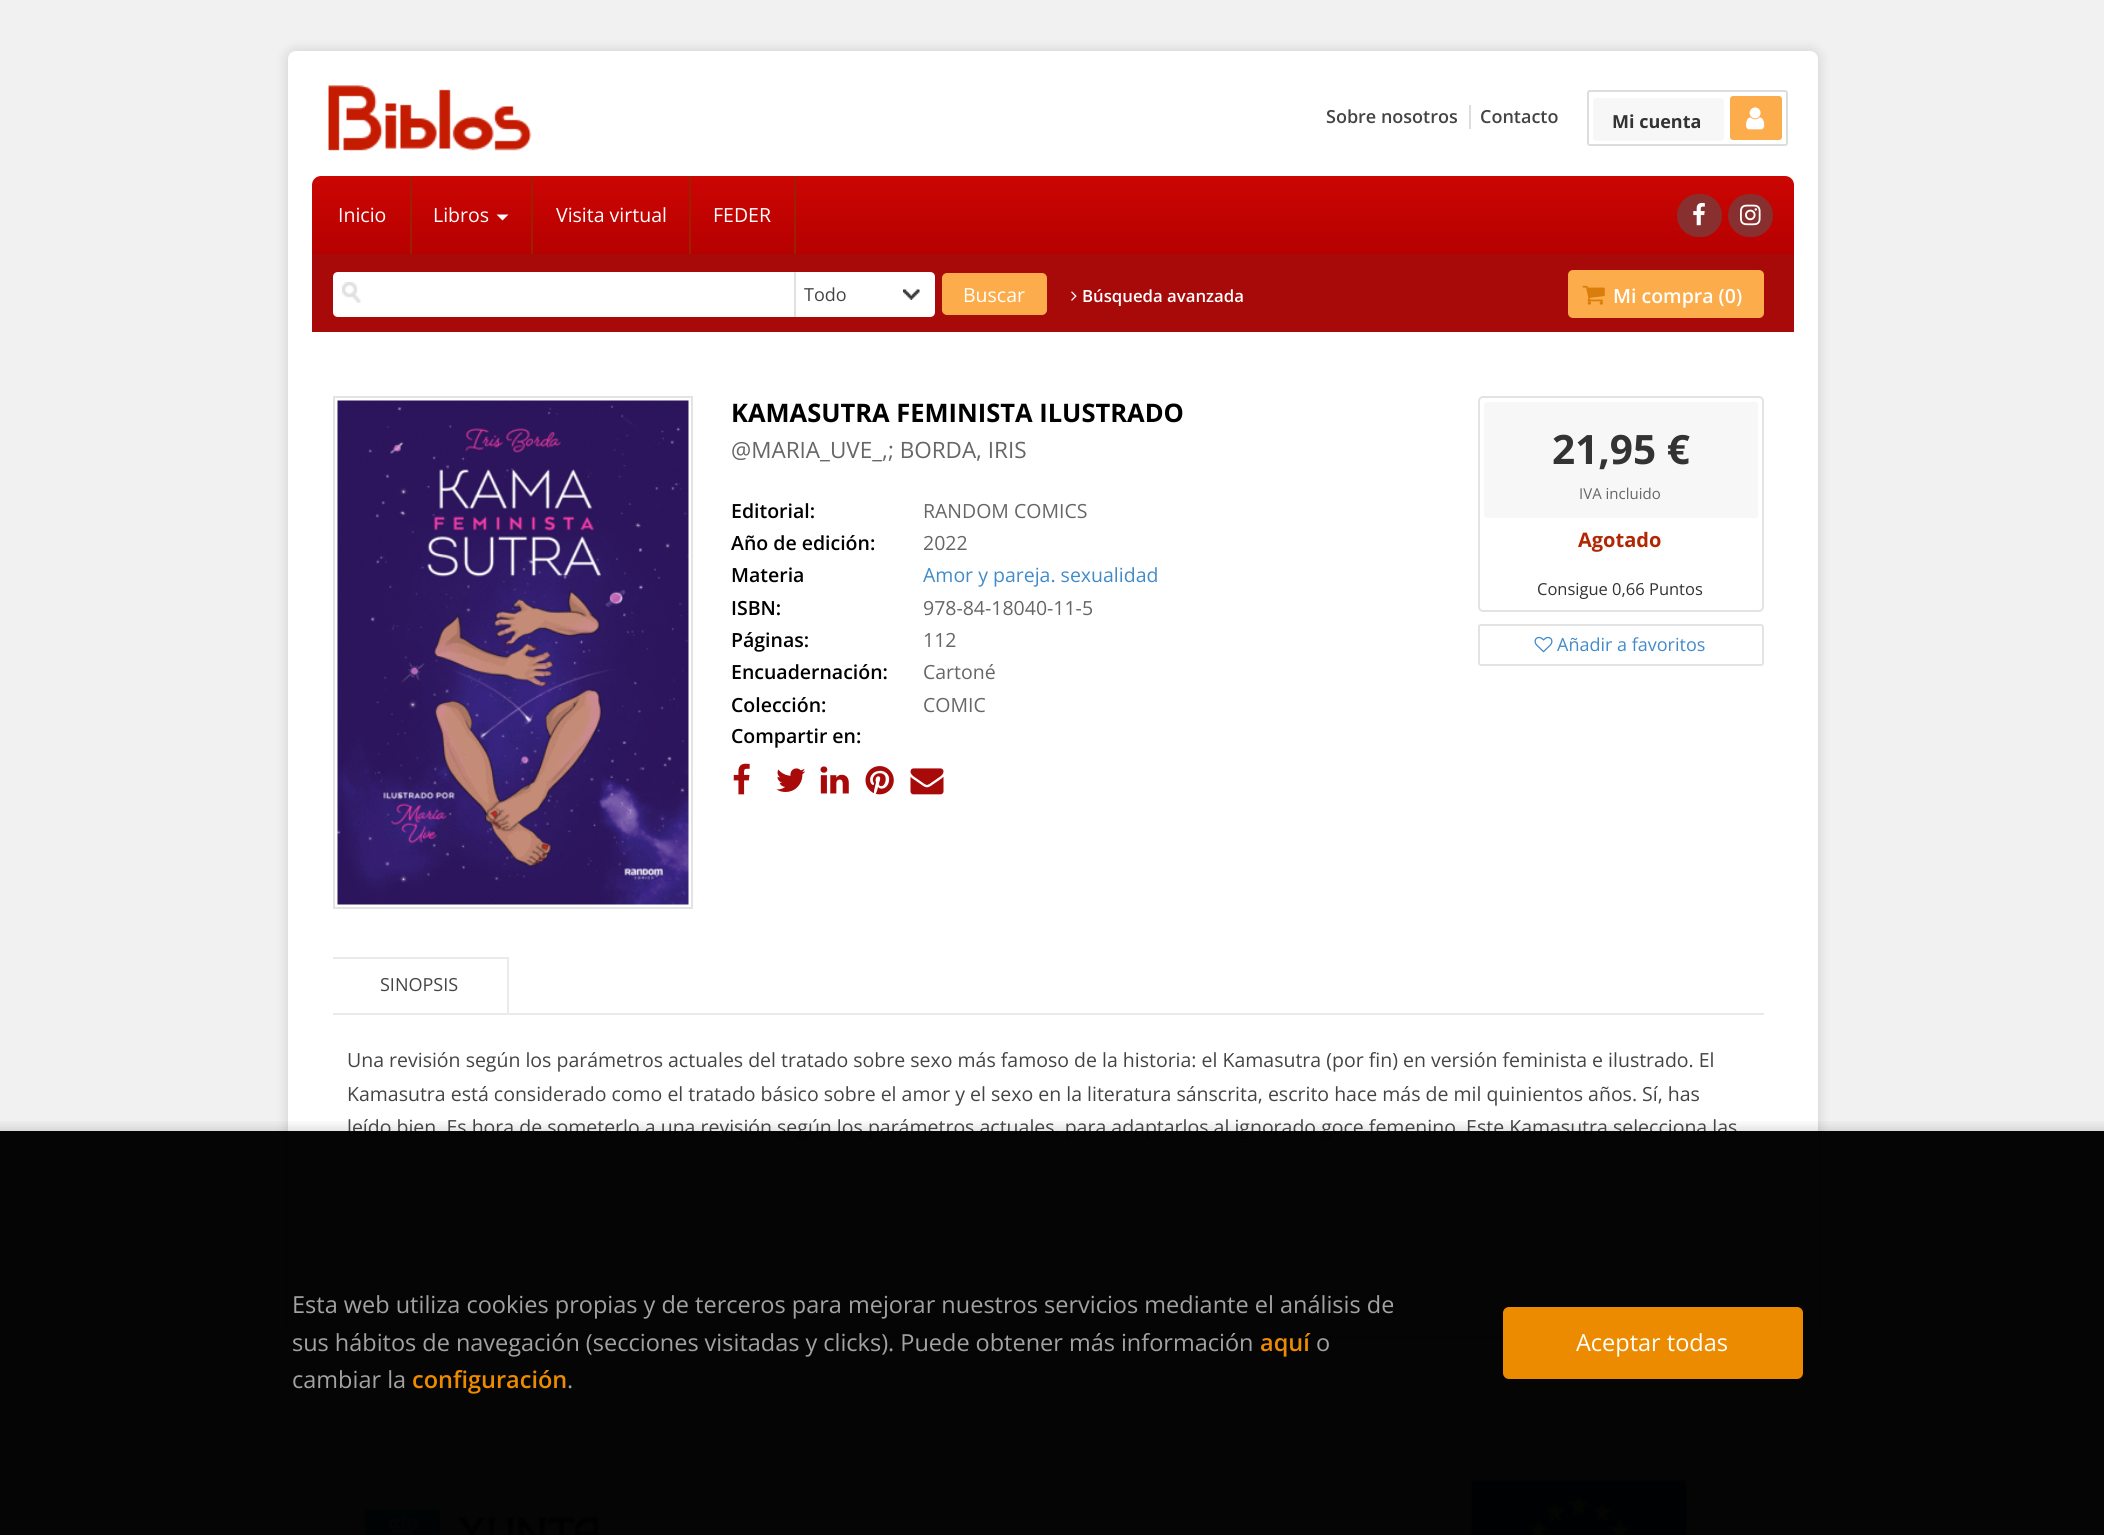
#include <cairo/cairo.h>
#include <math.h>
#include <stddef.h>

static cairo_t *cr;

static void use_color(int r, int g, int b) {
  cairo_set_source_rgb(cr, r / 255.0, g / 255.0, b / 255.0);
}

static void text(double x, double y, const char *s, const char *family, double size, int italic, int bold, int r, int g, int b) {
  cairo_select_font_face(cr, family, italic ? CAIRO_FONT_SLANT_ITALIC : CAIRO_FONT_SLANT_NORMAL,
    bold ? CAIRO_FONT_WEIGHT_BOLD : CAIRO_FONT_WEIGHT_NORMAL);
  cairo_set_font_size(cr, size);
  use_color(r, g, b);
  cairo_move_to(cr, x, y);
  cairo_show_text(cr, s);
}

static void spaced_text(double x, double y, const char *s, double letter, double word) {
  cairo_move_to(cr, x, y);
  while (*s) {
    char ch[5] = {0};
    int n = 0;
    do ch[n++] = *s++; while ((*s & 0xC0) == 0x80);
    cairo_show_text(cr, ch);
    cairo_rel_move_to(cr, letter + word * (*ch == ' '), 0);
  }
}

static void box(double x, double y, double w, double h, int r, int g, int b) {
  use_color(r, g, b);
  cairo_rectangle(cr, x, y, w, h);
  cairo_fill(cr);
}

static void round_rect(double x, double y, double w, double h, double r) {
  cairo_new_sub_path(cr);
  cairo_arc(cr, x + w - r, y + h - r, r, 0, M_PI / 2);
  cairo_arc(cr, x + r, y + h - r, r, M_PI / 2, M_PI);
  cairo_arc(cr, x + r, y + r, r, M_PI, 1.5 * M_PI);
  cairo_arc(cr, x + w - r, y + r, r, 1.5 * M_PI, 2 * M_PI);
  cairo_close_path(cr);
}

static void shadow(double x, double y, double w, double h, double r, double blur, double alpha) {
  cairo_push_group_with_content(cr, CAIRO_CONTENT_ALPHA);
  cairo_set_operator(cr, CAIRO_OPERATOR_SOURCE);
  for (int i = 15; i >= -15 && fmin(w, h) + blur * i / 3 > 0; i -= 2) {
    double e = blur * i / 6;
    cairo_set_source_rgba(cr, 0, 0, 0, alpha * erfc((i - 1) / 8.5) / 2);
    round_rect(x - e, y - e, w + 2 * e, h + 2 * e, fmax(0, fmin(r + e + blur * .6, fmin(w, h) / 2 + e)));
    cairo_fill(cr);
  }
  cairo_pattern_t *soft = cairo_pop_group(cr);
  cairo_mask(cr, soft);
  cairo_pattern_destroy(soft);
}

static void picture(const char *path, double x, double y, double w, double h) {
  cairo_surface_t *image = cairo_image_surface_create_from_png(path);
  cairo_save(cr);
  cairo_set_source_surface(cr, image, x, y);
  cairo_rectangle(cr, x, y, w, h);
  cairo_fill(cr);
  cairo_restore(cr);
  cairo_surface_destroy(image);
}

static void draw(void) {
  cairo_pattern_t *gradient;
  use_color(241, 241, 241);
  cairo_paint(cr);
  use_color(0, 0, 0);
  shadow(285, 48, 1536, 1290, 11, 5, 0.1);
  use_color(255, 255, 255);
  round_rect(288, 51, 1530, 1284, 8);
  cairo_fill(cr);
  picture("img_01.png", 328, 85, 204, 66);
  box(1469, 105, 2, 24, 221, 221, 221);
  round_rect(1588, 91, 199, 54, 2);
  cairo_stroke(cr);
  use_color(247, 247, 247);
  round_rect(1593, 98, 131, 43, 3);
  cairo_fill(cr);
  use_color(252, 172, 74);
  round_rect(1730, 96, 52, 44, 3);
  cairo_fill(cr);
  picture("img_02.png", 1746, 107, 19, 23);
  gradient = cairo_pattern_create_linear(1053, 175, 1053, 254);
  cairo_pattern_add_color_stop_rgba(gradient, 0, 0.8, 0.024, 0.012, 1);
  cairo_pattern_add_color_stop_rgba(gradient, 1, 0.714, 0, 0, 1);
  cairo_set_source(cr, gradient);
  cairo_pattern_destroy(gradient);
  cairo_new_path(cr);
  cairo_move_to(cr, 321, 176);
  cairo_line_to(cr, 1785, 176);
  cairo_curve_to(cr, 1790, 176, 1794, 180, 1794, 185);
  cairo_line_to(cr, 1794, 254);
  cairo_line_to(cr, 312, 254);
  cairo_line_to(cr, 312, 185);
  cairo_curve_to(cr, 312, 180, 316, 176, 321, 176);
  cairo_close_path(cr);
  cairo_fill(cr);
  box(410, 176, 2, 78, 159, 32, 1);
  box(531, 176, 2, 78, 159, 32, 1);
  use_color(255, 255, 255);
  cairo_new_path(cr);
  cairo_move_to(cr, 496.5, 214.5);
  cairo_line_to(cr, 508.5, 214.5);
  cairo_line_to(cr, 502.5, 220.5);
  cairo_close_path(cr);
  cairo_fill(cr);
  box(689, 176, 2, 78, 159, 32, 1);
  box(794, 176, 2, 78, 159, 32, 1);
  use_color(136, 47, 47);
  round_rect(1677, 194, 45, 43, 21.5);
  cairo_fill(cr);
  picture("img_03.png", 1693, 202, 12, 24);
  round_rect(1728, 194, 45, 43, 21.5);
  cairo_fill(cr);
  picture("img_04.png", 1740, 204, 21, 22);
  box(312, 254, 1482, 78, 168, 9, 9);
  use_color(255, 255, 255);
  cairo_new_path(cr);
  cairo_move_to(cr, 338, 272);
  cairo_line_to(cr, 794, 272);
  cairo_line_to(cr, 794, 317);
  cairo_line_to(cr, 338, 317);
  cairo_curve_to(cr, 335, 317, 333, 315, 333, 312);
  cairo_line_to(cr, 333, 277);
  cairo_curve_to(cr, 333, 274, 335, 272, 338, 272);
  cairo_close_path(cr);
  cairo_fill(cr);
  picture("img_05.png", 342, 282, 19, 21);
  cairo_new_path(cr);
  cairo_move_to(cr, 794, 272);
  cairo_line_to(cr, 930, 272);
  cairo_curve_to(cr, 933, 272, 935, 274, 935, 277);
  cairo_line_to(cr, 935, 312);
  cairo_curve_to(cr, 935, 315, 933, 317, 930, 317);
  cairo_line_to(cr, 794, 317);
  cairo_close_path(cr);
  cairo_fill(cr);
  picture("img_06.png", 903, 289, 17, 11);
  box(794, 272, 2, 45, 224, 224, 224);
  use_color(252, 172, 74);
  round_rect(943, 274, 103, 40, 4);
  cairo_fill_preserve(cr);
  cairo_stroke(cr);
  picture("img_07.png", 1071, 291, 6, 10);
  round_rect(1568, 270, 196, 48, 5);
  cairo_fill(cr);
  picture("img_08.png", 1582, 285, 23, 20);
  cairo_rectangle(cr, 334, 397, 358, 511);
  use_color(227, 227, 227);
  cairo_stroke(cr);
  picture("img_09.png", 337, 400, 352, 505);
  picture("img_10.png", 733, 763, 17, 32);
  picture("img_11.png", 776, 768, 30, 24);
  picture("img_12.png", 820, 766, 29, 28);
  picture("img_13.png", 865, 766, 29, 29);
  picture("img_14.png", 910, 768, 34, 27);
  round_rect(1479, 397, 284, 214, 4);
  cairo_stroke(cr);
  use_color(247, 247, 247);
  round_rect(1484, 402, 274, 116, 3);
  cairo_fill(cr);
  round_rect(1479, 625, 284, 40, 2);
  use_color(227, 227, 227);
  cairo_stroke(cr);
  picture("img_15.png", 1534, 636, 19, 17);
  box(333, 1013, 1431, 2, 234, 234, 234);
  box(333, 957, 176, 2, 234, 234, 234);
  box(507, 957, 2, 56, 234, 234, 234);
  box(0, 1455, 2104, 2, 227, 227, 227);
  picture("img_16.png", 364, 1508, 236, 27);
  picture("img_17.png", 1459, 1470, 238, 65);
  cairo_save(cr);
  cairo_rectangle(cr, 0, 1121, 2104, 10);
  cairo_clip(cr);
  use_color(0, 0, 0);
  shadow(-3, 1128, 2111, 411, 0, 6, 0.15);
  cairo_restore(cr);
  text(1326, 123, "Sobre nosotros", "Open Sans SemiBold", 18, 0, 0, 68, 68, 68);
  text(1480, 123, "Contacto", "Open Sans SemiBold", 18, 0, 0, 68, 68, 68);
  text(1612, 128, "Mi cuenta", "Open Sans", 18, 0, 1, 51, 51, 51);
  text(338, 222, "Inicio", "Open Sans", 19.5, 0, 0, 255, 255, 255);
  text(433, 222, "Libros", "Open Sans", 19.5, 0, 0, 255, 255, 255);
  text(556, 222, "Visita virtual", "Open Sans", 19.5, 0, 0, 255, 255, 255);
  text(713, 222, "FEDER", "Open Sans", 19.5, 0, 0, 255, 255, 255);
  text(804, 301, "Todo", "Open Sans", 18, 0, 0, 68, 68, 68);
  text(963, 302, "Buscar", "Open Sans", 19.5, 0, 0, 255, 255, 255);
  text(1082, 302, "Búsqueda avanzada", "Open Sans SemiBold", 16.75, 0, 0, 255, 255, 255);
  text(1613, 303, "Mi compra (0)", "Open Sans SemiBold", 19.5, 0, 0, 255, 255, 255);
  text(731, 422, "KAMASUTRA FEMINISTA ILUSTRADO", "Open Sans", 25.5, 0, 1, 0, 0, 0);
  text(731, 458, "@MARIA_UVE_,; BORDA, IRIS", "Open Sans", 22.5, 0, 0, 102, 102, 102);
  text(731, 518, "Editorial:", "Open Sans SemiBold", 19.5, 0, 0, 0, 0, 0);
  text(923, 518, "RANDOM COMICS", "Open Sans", 19.5, 0, 0, 102, 102, 102);
  text(731, 550, "Año de edición:", "Open Sans SemiBold", 19.5, 0, 0, 0, 0, 0);
  text(923, 550, "2022", "Open Sans", 19.5, 0, 0, 102, 102, 102);
  text(731, 582, "Materia", "Open Sans SemiBold", 19.5, 0, 0, 0, 0, 0);
  text(923, 582, "Amor y pareja. sexualidad", "Open Sans", 19.5, 0, 0, 66, 139, 202);
  text(731, 615, "ISBN:", "Open Sans SemiBold", 19.5, 0, 0, 0, 0, 0);
  text(923, 615, "978-84-18040-11-5", "Open Sans", 19.5, 0, 0, 102, 102, 102);
  text(731, 647, "Páginas:", "Open Sans SemiBold", 19.5, 0, 0, 0, 0, 0);
  text(923, 647, "112", "Open Sans", 19.5, 0, 0, 102, 102, 102);
  text(731, 679, "Encuadernación:", "Open Sans SemiBold", 19.5, 0, 0, 0, 0, 0);
  text(923, 679, "Cartoné", "Open Sans", 19.5, 0, 0, 102, 102, 102);
  text(731, 712, "Colección:", "Open Sans SemiBold", 19.5, 0, 0, 0, 0, 0);
  text(923, 712, "COMIC", "Open Sans", 19.5, 0, 0, 102, 102, 102);
  text(731, 743, "Compartir en:", "Open Sans SemiBold", 19.5, 0, 0, 0, 0, 0);
  text(1552, 464, "21,95 €", "Open Sans", 40.5, 0, 1, 51, 51, 51);
  text(1579, 499, "IVA incluido", "Open Sans", 15, 0, 0, 102, 102, 102);
  text(1578, 547, "Agotado", "Open Sans", 20, 0, 1, 177, 39, 4);
  text(1537, 595, "Consigue 0,66 Puntos", "Open Sans", 16.5, 0, 0, 51, 51, 51);
  text(1557, 651, "Añadir a favoritos", "Open Sans", 18, 0, 0, 66, 139, 202);
  text(380, 991, "SINOPSIS", "Open Sans", 18, 0, 0, 68, 68, 68);
  text(347, 1067, "Una revisión según los parámetros actuales del tratado sobre sexo más famoso de la historia: el Kamasutra (por fin) en versión feminista e ilustrado. El", "Open Sans", 19.5, 0, 0, 68, 68, 68);
  text(347, 1101, "Kamasutra está considerado como el tratado básico sobre el amor y el sexo en la literatura sánscrita, escrito hace más de mil quinientos años. Sí, has", "Open Sans", 19.5, 0, 0, 68, 68, 68);
  text(347, 1134, "leído bien. Es hora de someterlo a una revisión según los parámetros actuales, para adaptarlos al ignorado goce femenino. Este Kamasutra selecciona las", "Open Sans", 19.5, 0, 0, 68, 68, 68);
  cairo_set_source_rgba(cr, 0, 0, 0, 0.98);
  cairo_rectangle(cr, 0, 1131, 2104, 404);
  cairo_fill(cr);
  text(292, 1313, "Esta web utiliza cookies propias y de terceros para mejorar nuestros servicios mediante el análisis de", "Open Sans", 23.5, 0, 0, 162, 162, 162);
  spaced_text(292, 1351, "sus hábitos de navegación (secciones visitadas y clicks). Puede obtener más información", 0, -0.1);
  text(1260, 1351, "aquí", "Open Sans SemiBold", 23.5, 0, 0, 237, 139, 0);
  text(1316, 1351, "o", "Open Sans", 23.5, 0, 0, 162, 162, 162);
  text(292, 1388, "cambiar la", "Open Sans", 23.5, 0, 0, 162, 162, 162);
  text(412, 1388, "configuración", "Open Sans SemiBold", 23.5, 0, 0, 237, 139, 0);
  text(567, 1388, ".", "Open Sans", 23.5, 0, 0, 162, 162, 162);
  use_color(237, 139, 0);
  round_rect(1504, 1308, 298, 70, 5);
  cairo_fill_preserve(cr);
  cairo_stroke(cr);
  text(1576, 1351, "Aceptar todas", "Open Sans", 23.5, 0, 0, 255, 255, 255);
}

int main(void) {
  cairo_surface_t *surface = cairo_image_surface_create(CAIRO_FORMAT_RGB24, 2104, 1535);
  cr = cairo_create(surface);
  cairo_font_options_t *options = cairo_font_options_create();
  cairo_font_options_set_hint_metrics(options, CAIRO_HINT_METRICS_OFF);
  cairo_font_options_set_hint_style(options, CAIRO_HINT_STYLE_NONE);
  cairo_set_font_options(cr, options);
  cairo_set_miter_limit(cr, 4);
  draw();
  cairo_surface_write_to_png(surface, "out.png");
  cairo_font_options_destroy(options);
  cairo_destroy(cr);
  cairo_surface_destroy(surface);
  return 0;
}
